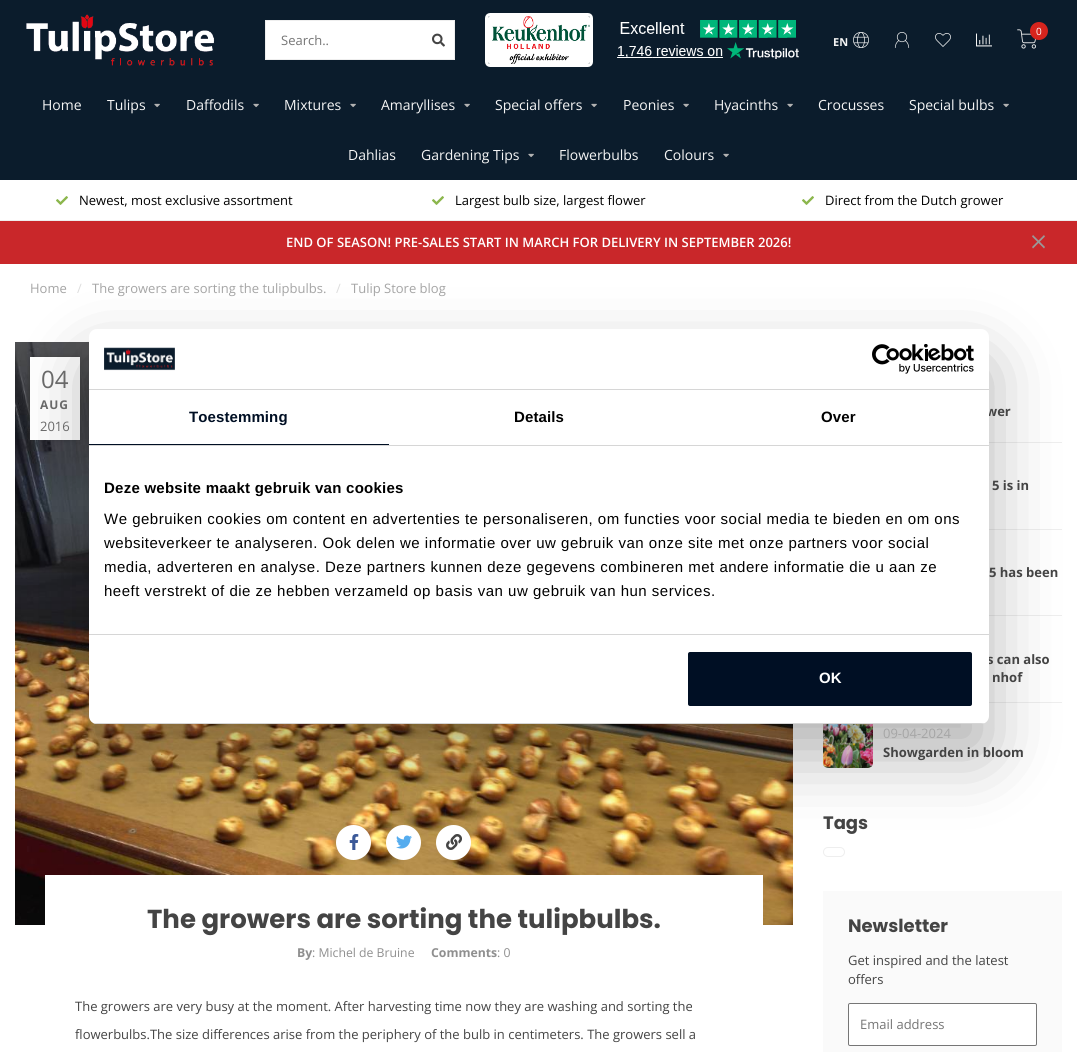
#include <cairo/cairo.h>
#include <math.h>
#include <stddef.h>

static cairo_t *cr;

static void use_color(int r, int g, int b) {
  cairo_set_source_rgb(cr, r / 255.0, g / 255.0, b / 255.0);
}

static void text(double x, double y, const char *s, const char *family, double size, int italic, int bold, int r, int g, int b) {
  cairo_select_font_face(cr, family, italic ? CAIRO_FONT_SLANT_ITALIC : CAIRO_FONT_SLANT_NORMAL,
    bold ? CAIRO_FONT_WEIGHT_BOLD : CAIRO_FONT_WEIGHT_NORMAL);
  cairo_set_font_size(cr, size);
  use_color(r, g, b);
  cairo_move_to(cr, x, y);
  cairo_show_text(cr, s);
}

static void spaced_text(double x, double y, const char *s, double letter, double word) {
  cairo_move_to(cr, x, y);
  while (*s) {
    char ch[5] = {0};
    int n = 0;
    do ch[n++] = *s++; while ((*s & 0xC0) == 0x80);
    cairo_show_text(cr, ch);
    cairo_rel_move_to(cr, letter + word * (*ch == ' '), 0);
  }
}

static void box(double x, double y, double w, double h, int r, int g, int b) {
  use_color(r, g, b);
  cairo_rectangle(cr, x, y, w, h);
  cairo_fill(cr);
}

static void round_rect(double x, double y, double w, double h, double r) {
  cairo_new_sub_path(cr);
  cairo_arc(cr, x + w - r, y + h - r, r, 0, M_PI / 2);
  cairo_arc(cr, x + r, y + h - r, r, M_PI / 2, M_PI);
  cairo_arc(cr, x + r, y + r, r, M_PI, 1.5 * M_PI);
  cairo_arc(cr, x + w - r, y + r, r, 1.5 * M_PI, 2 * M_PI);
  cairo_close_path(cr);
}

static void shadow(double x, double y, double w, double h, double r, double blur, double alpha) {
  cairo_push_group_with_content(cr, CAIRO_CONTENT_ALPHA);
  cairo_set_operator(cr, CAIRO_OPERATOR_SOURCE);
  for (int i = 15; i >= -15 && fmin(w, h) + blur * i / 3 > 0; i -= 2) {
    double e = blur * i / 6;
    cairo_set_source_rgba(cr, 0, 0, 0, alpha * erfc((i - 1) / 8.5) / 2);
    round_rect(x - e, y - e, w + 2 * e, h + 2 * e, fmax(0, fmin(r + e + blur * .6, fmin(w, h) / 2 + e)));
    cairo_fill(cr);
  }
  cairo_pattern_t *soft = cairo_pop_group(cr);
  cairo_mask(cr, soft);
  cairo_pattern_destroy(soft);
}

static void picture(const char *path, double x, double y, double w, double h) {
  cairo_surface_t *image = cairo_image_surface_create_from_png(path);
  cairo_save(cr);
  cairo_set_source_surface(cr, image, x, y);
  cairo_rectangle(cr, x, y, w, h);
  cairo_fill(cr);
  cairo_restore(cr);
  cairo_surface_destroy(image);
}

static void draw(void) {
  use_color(255, 255, 255);
  cairo_paint(cr);
  box(0, 0, 1077, 180, 11, 28, 44);
  picture("img_01.png", 26, 14, 189, 52);
  use_color(255, 255, 255);
  cairo_rectangle(cr, 265.5, 20.5, 189, 39);
  cairo_fill_preserve(cr);
  use_color(238, 238, 238);
  cairo_set_line_width(cr, 1);
  cairo_stroke(cr);
  picture("img_02.png", 432, 33, 13, 14);
  round_rect(486.5, 14.5, 105, 51, 3.5);
  use_color(255, 255, 255);
  cairo_set_line_width(cr, 3);
  cairo_stroke(cr);
  picture("img_03.png", 488, 16, 102, 48);
  picture("img_04.png", 617, 20, 182, 39);
  picture("img_05.png", 1017, 29, 19, 20);
  use_color(214, 36, 29);
  cairo_arc(cr, 1039, 31, 9, 0, 2 * M_PI);
  cairo_fill(cr);
  picture("img_06.png", 853, 32, 16, 16);
  picture("img_07.png", 894, 32, 16, 16);
  picture("img_08.png", 935, 33, 16, 14);
  picture("img_09.png", 976, 33, 16, 14);
  picture("img_10.png", 154, 103, 6, 5);
  picture("img_10.png", 253, 103, 6, 5);
  picture("img_10.png", 350, 103, 6, 5);
  picture("img_10.png", 464, 103, 6, 5);
  picture("img_10.png", 591, 103, 6, 5);
  picture("img_10.png", 683, 103, 6, 5);
  picture("img_10.png", 787, 103, 6, 5);
  picture("img_10.png", 1003, 103, 6, 5);
  picture("img_10.png", 528, 153, 6, 5);
  picture("img_10.png", 723, 153, 6, 5);
  box(0, 220, 1077, 1, 238, 238, 238);
  picture("img_11.png", 56, 196, 12, 9);
  picture("img_11.png", 432, 196, 12, 9);
  picture("img_11.png", 802, 196, 12, 9);
  box(0, 221, 1077, 43, 201, 39, 42);
  use_color(153, 153, 153);
  cairo_new_path(cr);
  cairo_move_to(cr, 1033, 235);
  cairo_line_to(cr, 1045, 247);
  cairo_line_to(cr, 1044, 248.5);
  cairo_line_to(cr, 1032, 236.5);
  cairo_close_path(cr);
  cairo_fill(cr);
  cairo_new_path(cr);
  cairo_move_to(cr, 1032, 247);
  cairo_line_to(cr, 1044, 235);
  cairo_line_to(cr, 1045, 236.5);
  cairo_line_to(cr, 1033, 248.5);
  cairo_close_path(cr);
  cairo_fill(cr);
  picture("img_12.png", 15, 342, 778, 583);
  use_color(0, 0, 0);
  shadow(33, 360, 44, 77, 0, 3, 0.51);
  box(30, 357, 50, 83, 255, 255, 255);
  cairo_arc(cr, 353.5, 842.5, 17.5, 0, 2 * M_PI);
  cairo_fill(cr);
  picture("img_13.png", 349, 834, 10, 16);
  cairo_arc(cr, 403.5, 842.5, 17.5, 0, 2 * M_PI);
  cairo_fill(cr);
  picture("img_14.png", 396, 835, 16, 14);
  cairo_arc(cr, 453.5, 842.5, 17.5, 0, 2 * M_PI);
  cairo_fill(cr);
  picture("img_15.png", 446, 834, 16, 16);
  box(45, 875, 718, 50, 255, 255, 255);
  box(989, 442, 73, 1, 238, 238, 238);
  box(989, 529, 73, 1, 238, 238, 238);
  box(989, 615, 73, 1, 238, 238, 238);
  box(989, 702, 73, 1, 238, 238, 238);
  picture("img_16.png", 823, 724, 50, 44);
  round_rect(823.5, 847.5, 21, 9, 4.5);
  cairo_set_line_width(cr, 1);
  cairo_stroke(cr);
  box(823, 891, 239, 161, 250, 250, 250);
  use_color(255, 255, 255);
  round_rect(848.5, 1003.5, 188, 42, 1.5);
  cairo_fill_preserve(cr);
  use_color(118, 118, 118);
  cairo_stroke(cr);
  use_color(0, 0, 0);
  shadow(89, 361, 900, 395, 8, 34, 0.3);
  text(281, 45, "Search..", "Open Sans", 13, 0, 0, 117, 117, 117);
  text(1036, 35, "0", "Open Sans", 10, 0, 0, 255, 255, 255);
  text(833, 46, "EN", "Open Sans", 11, 0, 1, 245, 245, 245);
  text(42, 110, "Home", "Open Sans", 14, 0, 0, 245, 245, 245);
  text(107, 110, "Tulips", "Open Sans", 14, 0, 0, 245, 245, 245);
  text(186, 110, "Daffodils", "Open Sans", 14, 0, 0, 245, 245, 245);
  text(284, 110, "Mixtures", "Open Sans", 14, 0, 0, 245, 245, 245);
  text(381, 110, "Amaryllises", "Open Sans", 14, 0, 0, 245, 245, 245);
  text(495, 110, "Special offers", "Open Sans", 14, 0, 0, 245, 245, 245);
  text(623, 110, "Peonies", "Open Sans", 14, 0, 0, 245, 245, 245);
  text(714, 110, "Hyacinths", "Open Sans", 14, 0, 0, 245, 245, 245);
  text(818, 110, "Crocusses", "Open Sans", 14, 0, 0, 245, 245, 245);
  text(909, 110, "Special bulbs", "Open Sans", 14, 0, 0, 245, 245, 245);
  text(348, 160, "Dahlias", "Open Sans", 14, 0, 0, 245, 245, 245);
  text(421, 160, "Gardening Tips", "Open Sans", 14, 0, 0, 245, 245, 245);
  text(559, 160, "Flowerbulbs", "Open Sans", 14, 0, 0, 245, 245, 245);
  text(664, 160, "Colours", "Open Sans", 14, 0, 0, 245, 245, 245);
  text(79, 205, "Newest, most exclusive assortment", "Open Sans", 13, 0, 0, 0, 0, 0);
  text(455, 205, "Largest bulb size, largest flower", "Open Sans", 13, 0, 0, 0, 0, 0);
  text(825, 205, "Direct from the Dutch grower", "Open Sans", 13, 0, 0, 0, 0, 0);
  text(286, 247, "END OF SEASON! PRE-SALES START IN MARCH FOR DELIVERY IN SEPTEMBER 2026!", "Open Sans SemiBold", 13, 0, 0, 255, 255, 255);
  text(30, 293, "Home", "Open Sans", 13, 0, 0, 165, 165, 165);
  text(77, 293, "/", "Open Sans", 13, 0, 0, 221, 221, 221);
  text(92, 293, "The growers are sorting the tulipbulbs.", "Open Sans", 13, 0, 0, 165, 165, 165);
  text(336, 293, "/", "Open Sans", 13, 0, 0, 221, 221, 221);
  text(351, 293, "Tulip Store blog", "Open Sans", 13, 0, 0, 165, 165, 165);
  text(41, 388, "04", "Open Sans", 24, 0, 0, 105, 105, 105);
  cairo_select_font_face(cr, "Open Sans", CAIRO_FONT_SLANT_NORMAL, CAIRO_FONT_WEIGHT_BOLD);
  cairo_set_font_size(cr, 12);
  spaced_text(40, 409, "AUG", 1, 0);
  text(40, 431, "2016", "Open Sans", 13, 0, 0, 105, 105, 105);
  text(147, 928, "The growers are sorting the tulipbulbs.", "Poppins", 26, 0, 1, 68, 68, 68);
  text(297, 957, "By", "Open Sans", 12.25, 0, 1, 143, 143, 143);
  text(312, 957, ": Michel de Bruine", "Open Sans", 12.25, 0, 0, 143, 143, 143);
  text(431, 957, "Comments", "Open Sans", 12.25, 0, 1, 143, 143, 143);
  text(497, 957, ": 0", "Open Sans", 12.25, 0, 0, 143, 143, 143);
  text(75, 1011, "The growers are very busy at the moment. After harvesting time now they are washing and sorting the", "Open Sans", 13, 0, 0, 68, 68, 68);
  text(75, 1039, "flowerbulbs.The size differences arise from the periphery of the bulb in centimeters. The growers sell a", "Open Sans", 13, 0, 0, 68, 68, 68);
  text(986, 416, "wer", "Open Sans", 13, 0, 1, 68, 68, 68);
  text(992, 490, "5 is in", "Open Sans", 13, 0, 1, 68, 68, 68);
  text(989, 577, "5 has been", "Open Sans", 13, 0, 1, 68, 68, 68);
  text(987, 664, "s can also", "Open Sans", 13, 0, 1, 68, 68, 68);
  text(992, 682, "nhof", "Open Sans", 13, 0, 1, 68, 68, 68);
  text(883, 738, "09-04-2024", "Open Sans", 13, 0, 0, 165, 165, 165);
  text(883, 757, "Showgarden in bloom", "Open Sans", 13, 0, 1, 68, 68, 68);
  text(823, 829, "Tags", "Poppins", 18, 0, 1, 68, 68, 68);
  text(848, 932, "Newsletter", "Poppins", 18, 0, 1, 68, 68, 68);
  text(848, 965, "Get inspired and the latest", "Open Sans", 13, 0, 0, 68, 68, 68);
  text(848, 984, "offers", "Open Sans", 13, 0, 0, 68, 68, 68);
  text(860, 1029, "Email address", "Open Sans", 13, 0, 0, 117, 117, 117);
  use_color(255, 255, 255);
  round_rect(89, 329, 900, 395, 8);
  cairo_fill(cr);
  box(89, 389, 900, 1, 214, 214, 214);
  picture("img_17.png", 104, 347, 71, 24);
  picture("img_18.png", 872, 344, 102, 30);
  box(89, 445, 900, 1, 214, 214, 214);
  box(89, 444, 300, 1, 0, 15, 36);
  cairo_select_font_face(cr, "Liberation Sans", CAIRO_FONT_SLANT_NORMAL, CAIRO_FONT_WEIGHT_BOLD);
  cairo_set_font_size(cr, 15);
  spaced_text(189, 422, "Toestemming", 0.1, 0);
  use_color(0, 0, 0);
  spaced_text(514, 422, "Details", 0.1, 0);
  spaced_text(821, 422, "Over", 0.1, 0);
  box(89, 634, 900, 1, 214, 214, 214);
  use_color(0, 0, 0);
  spaced_text(104, 493, "Deze website maakt gebruik van cookies", 0.25, 0);
  cairo_select_font_face(cr, "Liberation Sans", CAIRO_FONT_SLANT_NORMAL, CAIRO_FONT_WEIGHT_NORMAL);
  spaced_text(104, 524, "We gebruiken cookies om content en advertenties te personaliseren, om functies voor social media te bieden en om ons", 0.5, 0);
  spaced_text(104, 548, "websiteverkeer te analyseren. Ook delen we informatie over uw gebruik van onze site met onze partners voor social", 0.5, 0);
  spaced_text(104, 572, "media, adverteren en analyse. Deze partners kunnen deze gegevens combineren met andere informatie die u aan ze", 0.5, 0);
  spaced_text(104, 596, "heeft verstrekt of die ze hebben verzameld op basis van uw gebruik van hun services.", 0.5, 0);
  cairo_save(cr);
  round_rect(89, 329, 900, 395, 8);
  cairo_clip(cr);
  box(89, 723, 900, 1, 214, 214, 214);
  cairo_restore(cr);
  use_color(0, 15, 36);
  round_rect(687, 651, 286, 56, 3);
  cairo_fill_preserve(cr);
  use_color(255, 255, 255);
  cairo_set_line_width(cr, 2);
  cairo_stroke(cr);
  text(819, 683, "OK", "Liberation Sans", 15, 0, 1, 255, 255, 255);
}

int main(void) {
  cairo_surface_t *surface = cairo_image_surface_create(CAIRO_FORMAT_RGB24, 1077, 1052);
  cr = cairo_create(surface);
  cairo_font_options_t *options = cairo_font_options_create();
  cairo_font_options_set_hint_metrics(options, CAIRO_HINT_METRICS_OFF);
  cairo_font_options_set_hint_style(options, CAIRO_HINT_STYLE_NONE);
  cairo_set_font_options(cr, options);
  cairo_set_miter_limit(cr, 4);
  draw();
  cairo_surface_write_to_png(surface, "out.png");
  cairo_font_options_destroy(options);
  cairo_destroy(cr);
  cairo_surface_destroy(surface);
  return 0;
}
